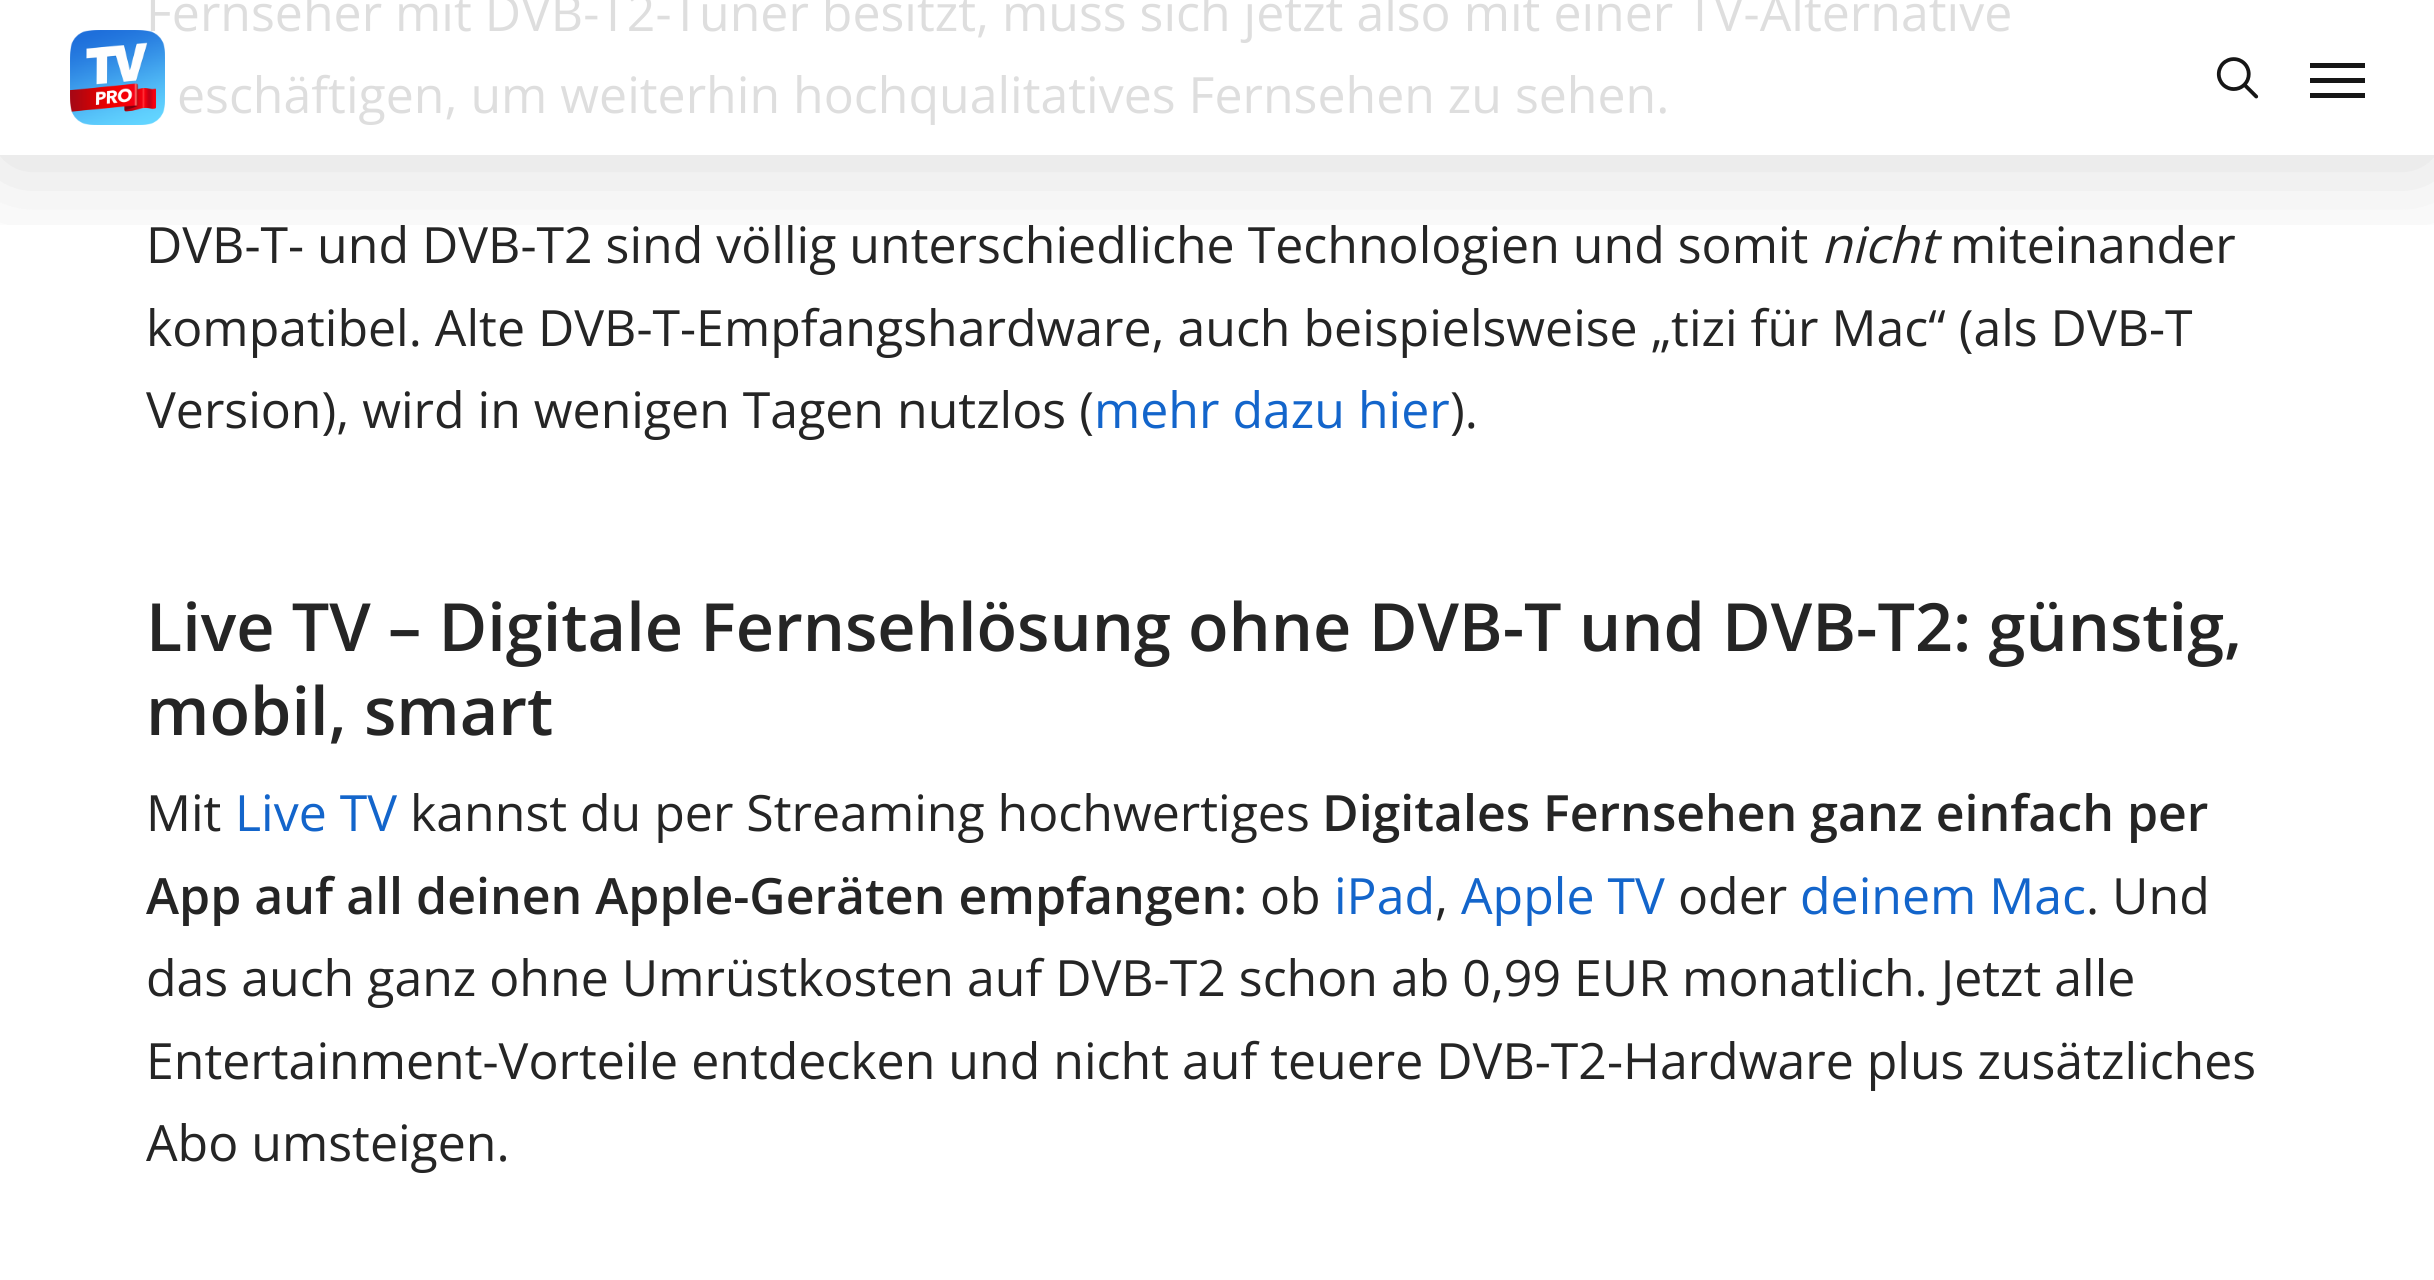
#include <cairo/cairo.h>
#include <math.h>
#include <stddef.h>

static cairo_t *cr;

static void use_color(int r, int g, int b) {
  cairo_set_source_rgb(cr, r / 255.0, g / 255.0, b / 255.0);
}

static void text(double x, double y, const char *s, const char *family, double size, int italic, int bold, int r, int g, int b) {
  cairo_select_font_face(cr, family, italic ? CAIRO_FONT_SLANT_ITALIC : CAIRO_FONT_SLANT_NORMAL,
    bold ? CAIRO_FONT_WEIGHT_BOLD : CAIRO_FONT_WEIGHT_NORMAL);
  cairo_set_font_size(cr, size);
  use_color(r, g, b);
  cairo_move_to(cr, x, y);
  cairo_show_text(cr, s);
}

static void box(double x, double y, double w, double h, int r, int g, int b) {
  use_color(r, g, b);
  cairo_rectangle(cr, x, y, w, h);
  cairo_fill(cr);
}

static void round_rect(double x, double y, double w, double h, double r) {
  cairo_new_sub_path(cr);
  cairo_arc(cr, x + w - r, y + h - r, r, 0, M_PI / 2);
  cairo_arc(cr, x + r, y + h - r, r, M_PI / 2, M_PI);
  cairo_arc(cr, x + r, y + r, r, M_PI, 1.5 * M_PI);
  cairo_arc(cr, x + w - r, y + r, r, 1.5 * M_PI, 2 * M_PI);
  cairo_close_path(cr);
}

static void shadow(double x, double y, double w, double h, double r, double blur, double alpha) {
  cairo_push_group_with_content(cr, CAIRO_CONTENT_ALPHA);
  cairo_set_operator(cr, CAIRO_OPERATOR_SOURCE);
  for (int i = 15; i >= -15 && fmin(w, h) + blur * i / 3 > 0; i -= 2) {
    double e = blur * i / 6;
    cairo_set_source_rgba(cr, 0, 0, 0, alpha * erfc((i - 1) / 8.5) / 2);
    round_rect(x - e, y - e, w + 2 * e, h + 2 * e, fmax(0, fmin(r + e + blur * .6, fmin(w, h) / 2 + e)));
    cairo_fill(cr);
  }
  cairo_pattern_t *soft = cairo_pop_group(cr);
  cairo_mask(cr, soft);
  cairo_pattern_destroy(soft);
}

static void picture(const char *path, double x, double y, double w, double h) {
  cairo_surface_t *image = cairo_image_surface_create_from_png(path);
  cairo_save(cr);
  cairo_set_source_surface(cr, image, x, y);
  cairo_rectangle(cr, x, y, w, h);
  cairo_fill(cr);
  cairo_restore(cr);
  cairo_surface_destroy(image);
}

static void draw(void) {
  use_color(255, 255, 255);
  cairo_paint(cr);
  cairo_save(cr);
  cairo_rectangle(cr, 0, 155, 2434, 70);
  cairo_clip(cr);
  use_color(0, 0, 0);
  shadow(0, 8, 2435, 155, 0, 56, 0.15);
  cairo_restore(cr);
  picture("img_02.png", 2216, 57, 43, 42);
  box(2310, 63, 55, 5, 22, 22, 22);
  box(2310, 93, 55, 5, 22, 22, 22);
  box(2310, 78, 55, 5, 22, 22, 22);
  text(146, 31, "Fernseher mit DVB-T2-Tuner besitzt, muss sich jetzt also mit einer TV-Alternative", "Open Sans", 50, 0, 0, 222, 222, 222);
  picture("img_01.png", 70, 30, 95, 95);
  text(177, 113, "eschäftigen, um weiterhin hochqualitatives Fernsehen zu sehen.", "Open Sans", 50, 0, 0, 222, 222, 222);
  text(146, 263, "DVB-T- und DVB-T2 sind völlig unterschiedliche Technologien und somit", "Open Sans", 50, 0, 0, 37, 37, 37);
  text(1821, 263, "nicht", "Open Sans", 50, 1, 0, 37, 37, 37);
  text(1950, 263, "miteinander", "Open Sans", 50, 0, 0, 37, 37, 37);
  text(146, 346, "kompatibel. Alte DVB-T-Empfangshardware, auch beispielsweise „tizi für Mac“ (als DVB-T", "Open Sans", 50, 0, 0, 37, 37, 37);
  text(146, 428, "Version), wird in wenigen Tagen nutzlos (", "Open Sans", 50, 0, 0, 37, 37, 37);
  text(1094, 428, "mehr dazu hier", "Open Sans", 50, 0, 0, 19, 101, 203);
  text(1450, 428, ").", "Open Sans", 50, 0, 0, 37, 37, 37);
  text(146, 651, "Live TV – Digitale Fernsehlösung ohne DVB-T und DVB-T2: günstig,", "Open Sans SemiBold", 66.5, 0, 0, 37, 37, 37);
  text(146, 735, "mobil, smart", "Open Sans SemiBold", 66.5, 0, 0, 37, 37, 37);
  text(146, 831, "Mit", "Open Sans", 50, 0, 0, 37, 37, 37);
  text(235, 831, "Live TV", "Open Sans", 50, 0, 0, 19, 101, 203);
  text(410, 831, "kannst du per Streaming hochwertiges", "Open Sans", 50, 0, 0, 37, 37, 37);
  text(1322, 831, "Digitales Fernsehen ganz einfach per", "Open Sans SemiBold", 50, 0, 0, 37, 37, 37);
  text(146, 914, "App auf all deinen Apple-Geräten empfangen:", "Open Sans SemiBold", 50, 0, 0, 37, 37, 37);
  text(1260, 914, "ob", "Open Sans", 50, 0, 0, 37, 37, 37);
  text(1334, 914, "iPad", "Open Sans", 50, 0, 0, 19, 101, 203);
  text(1435, 914, ",", "Open Sans", 50, 0, 0, 37, 37, 37);
  text(1461, 914, "Apple TV", "Open Sans", 50, 0, 0, 19, 101, 203);
  text(1678, 914, "oder", "Open Sans", 50, 0, 0, 37, 37, 37);
  text(1800, 914, "deinem Mac", "Open Sans", 50, 0, 0, 19, 101, 203);
  text(2086, 914, ". Und", "Open Sans", 50, 0, 0, 37, 37, 37);
  text(146, 996, "das auch ganz ohne Umrüstkosten auf DVB-T2 schon ab 0,99 EUR monatlich. Jetzt alle", "Open Sans", 50, 0, 0, 37, 37, 37);
  text(146, 1079, "Entertainment-Vorteile entdecken und nicht auf teuere DVB-T2-Hardware plus zusätzliches", "Open Sans", 50, 0, 0, 37, 37, 37);
  text(146, 1161, "Abo umsteigen.", "Open Sans", 50, 0, 0, 37, 37, 37);
}

int main(void) {
  cairo_surface_t *surface = cairo_image_surface_create(CAIRO_FORMAT_RGB24, 2434, 1280);
  cr = cairo_create(surface);
  cairo_font_options_t *options = cairo_font_options_create();
  cairo_font_options_set_hint_metrics(options, CAIRO_HINT_METRICS_OFF);
  cairo_font_options_set_hint_style(options, CAIRO_HINT_STYLE_NONE);
  cairo_set_font_options(cr, options);
  cairo_set_miter_limit(cr, 4);
  draw();
  cairo_surface_write_to_png(surface, "out.png");
  cairo_font_options_destroy(options);
  cairo_destroy(cr);
  cairo_surface_destroy(surface);
  return 0;
}
